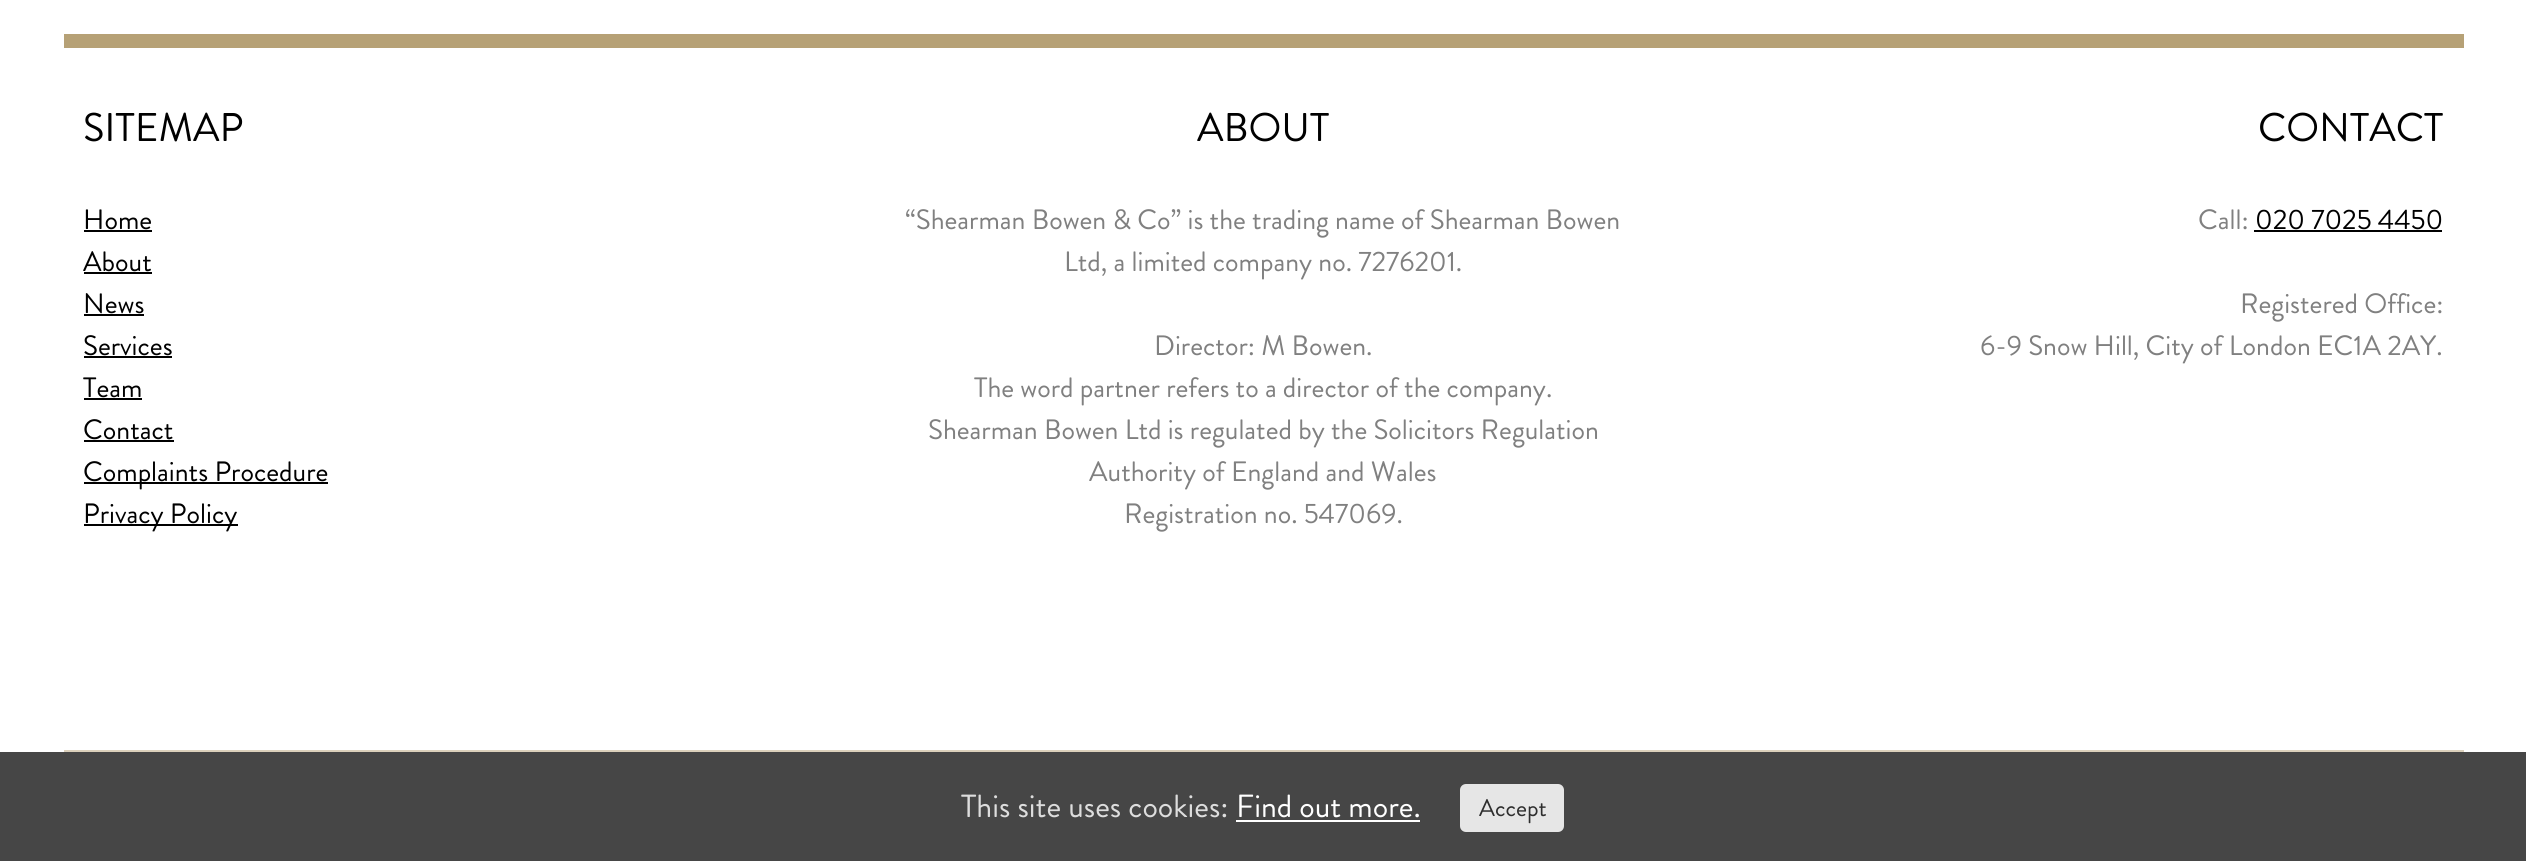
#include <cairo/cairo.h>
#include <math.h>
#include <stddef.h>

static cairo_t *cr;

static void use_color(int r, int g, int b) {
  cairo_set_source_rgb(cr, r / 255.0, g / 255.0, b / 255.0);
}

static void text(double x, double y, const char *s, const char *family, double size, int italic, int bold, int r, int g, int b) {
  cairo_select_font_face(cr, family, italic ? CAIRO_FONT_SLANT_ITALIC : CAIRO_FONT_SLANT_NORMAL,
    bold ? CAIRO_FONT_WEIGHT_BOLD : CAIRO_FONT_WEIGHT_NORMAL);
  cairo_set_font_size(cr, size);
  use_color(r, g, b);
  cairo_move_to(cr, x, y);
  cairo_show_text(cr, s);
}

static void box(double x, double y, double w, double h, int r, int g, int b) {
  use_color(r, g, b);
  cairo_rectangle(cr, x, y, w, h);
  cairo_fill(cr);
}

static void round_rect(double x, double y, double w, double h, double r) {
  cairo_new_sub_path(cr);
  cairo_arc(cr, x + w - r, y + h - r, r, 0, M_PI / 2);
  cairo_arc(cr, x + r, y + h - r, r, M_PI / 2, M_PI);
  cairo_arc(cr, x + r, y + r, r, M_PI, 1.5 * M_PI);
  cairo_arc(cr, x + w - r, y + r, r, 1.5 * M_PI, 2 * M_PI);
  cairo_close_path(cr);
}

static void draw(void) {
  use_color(255, 255, 255);
  cairo_paint(cr);
  box(64, 34, 2400, 14, 182, 161, 118);
  box(84, 230, 68, 2, 0, 0, 0);
  box(84, 272, 68, 2, 0, 0, 0);
  box(84, 314, 60, 2, 0, 0, 0);
  box(84, 356, 88, 2, 0, 0, 0);
  box(84, 398, 58, 2, 0, 0, 0);
  box(84, 440, 90, 2, 0, 0, 0);
  box(84, 482, 244, 2, 0, 0, 0);
  box(84, 524, 154, 2, 0, 0, 0);
  box(2254, 230, 188, 2, 0, 0, 0);
  box(64, 750, 2400, 2, 219, 208, 187);
  box(0, 752, 2526, 109, 70, 70, 70);
  box(1236, 820, 184, 2, 255, 255, 255);
  use_color(230, 230, 230);
  round_rect(1460, 784, 104, 48, 6);
  cairo_fill(cr);
  text(83, 141, "SITEMAP", "Brandon Grotesque", 40, 0, 0, 0, 0, 0);
  text(83, 229, "Home", "Brandon Grotesque", 28, 0, 0, 0, 0, 0);
  text(83, 271, "About", "Brandon Grotesque", 28, 0, 0, 0, 0, 0);
  text(83, 313, "News", "Brandon Grotesque", 28, 0, 0, 0, 0, 0);
  text(83, 355, "Services", "Brandon Grotesque", 28, 0, 0, 0, 0, 0);
  text(83, 397, "Team", "Brandon Grotesque", 28, 0, 0, 0, 0, 0);
  text(83, 439, "Contact", "Brandon Grotesque", 28, 0, 0, 0, 0, 0);
  text(83, 481, "Complaints Procedure", "Brandon Grotesque", 28, 0, 0, 0, 0, 0);
  text(83, 523, "Privacy Policy", "Brandon Grotesque", 28, 0, 0, 0, 0, 0);
  text(1197, 141, "ABOUT", "Brandon Grotesque", 40, 0, 0, 0, 0, 0);
  text(905, 229, "“Shearman Bowen & Co” is the trading name of Shearman Bowen", "Brandon Grotesque", 28, 0, 0, 128, 128, 128);
  text(1064, 271, "Ltd, a limited company no. 7276201.", "Brandon Grotesque", 28, 0, 0, 128, 128, 128);
  text(1154, 355, "Director: M Bowen.", "Brandon Grotesque", 28, 0, 0, 128, 128, 128);
  text(974, 397, "The word partner refers to a director of the company.", "Brandon Grotesque", 28, 0, 0, 128, 128, 128);
  text(928, 439, "Shearman Bowen Ltd is regulated by the Solicitors Regulation", "Brandon Grotesque", 28, 0, 0, 128, 128, 128);
  text(1089, 481, "Authority of England and Wales", "Brandon Grotesque", 28, 0, 0, 128, 128, 128);
  text(1124, 523, "Registration no. 547069.", "Brandon Grotesque", 28, 0, 0, 128, 128, 128);
  text(2258, 141, "CONTACT", "Brandon Grotesque", 40, 0, 0, 0, 0, 0);
  text(2198, 229, "Call:", "Brandon Grotesque", 28, 0, 0, 128, 128, 128);
  text(2255, 229, "020 7025 4450", "Brandon Grotesque", 28, 0, 0, 0, 0, 0);
  text(2240, 313, "Registered Office:", "Brandon Grotesque", 28, 0, 0, 128, 128, 128);
  text(1980, 355, "6-9 Snow Hill, City of London EC1A 2AY.", "Brandon Grotesque", 28, 0, 0, 128, 128, 128);
  text(961, 817, "This site uses cookies:", "Brandon Grotesque", 32, 0, 0, 221, 221, 221);
  text(1236, 817, "Find out more.", "Brandon Grotesque", 32, 0, 0, 255, 255, 255);
  text(1479, 816, "Accept", "Brandon Grotesque", 24, 0, 0, 46, 46, 46);
}

int main(void) {
  cairo_surface_t *surface = cairo_image_surface_create(CAIRO_FORMAT_RGB24, 2526, 861);
  cr = cairo_create(surface);
  cairo_font_options_t *options = cairo_font_options_create();
  cairo_font_options_set_hint_metrics(options, CAIRO_HINT_METRICS_OFF);
  cairo_font_options_set_hint_style(options, CAIRO_HINT_STYLE_NONE);
  cairo_set_font_options(cr, options);
  cairo_set_miter_limit(cr, 4);
  draw();
  cairo_surface_write_to_png(surface, "out.png");
  cairo_font_options_destroy(options);
  cairo_destroy(cr);
  cairo_surface_destroy(surface);
  return 0;
}
